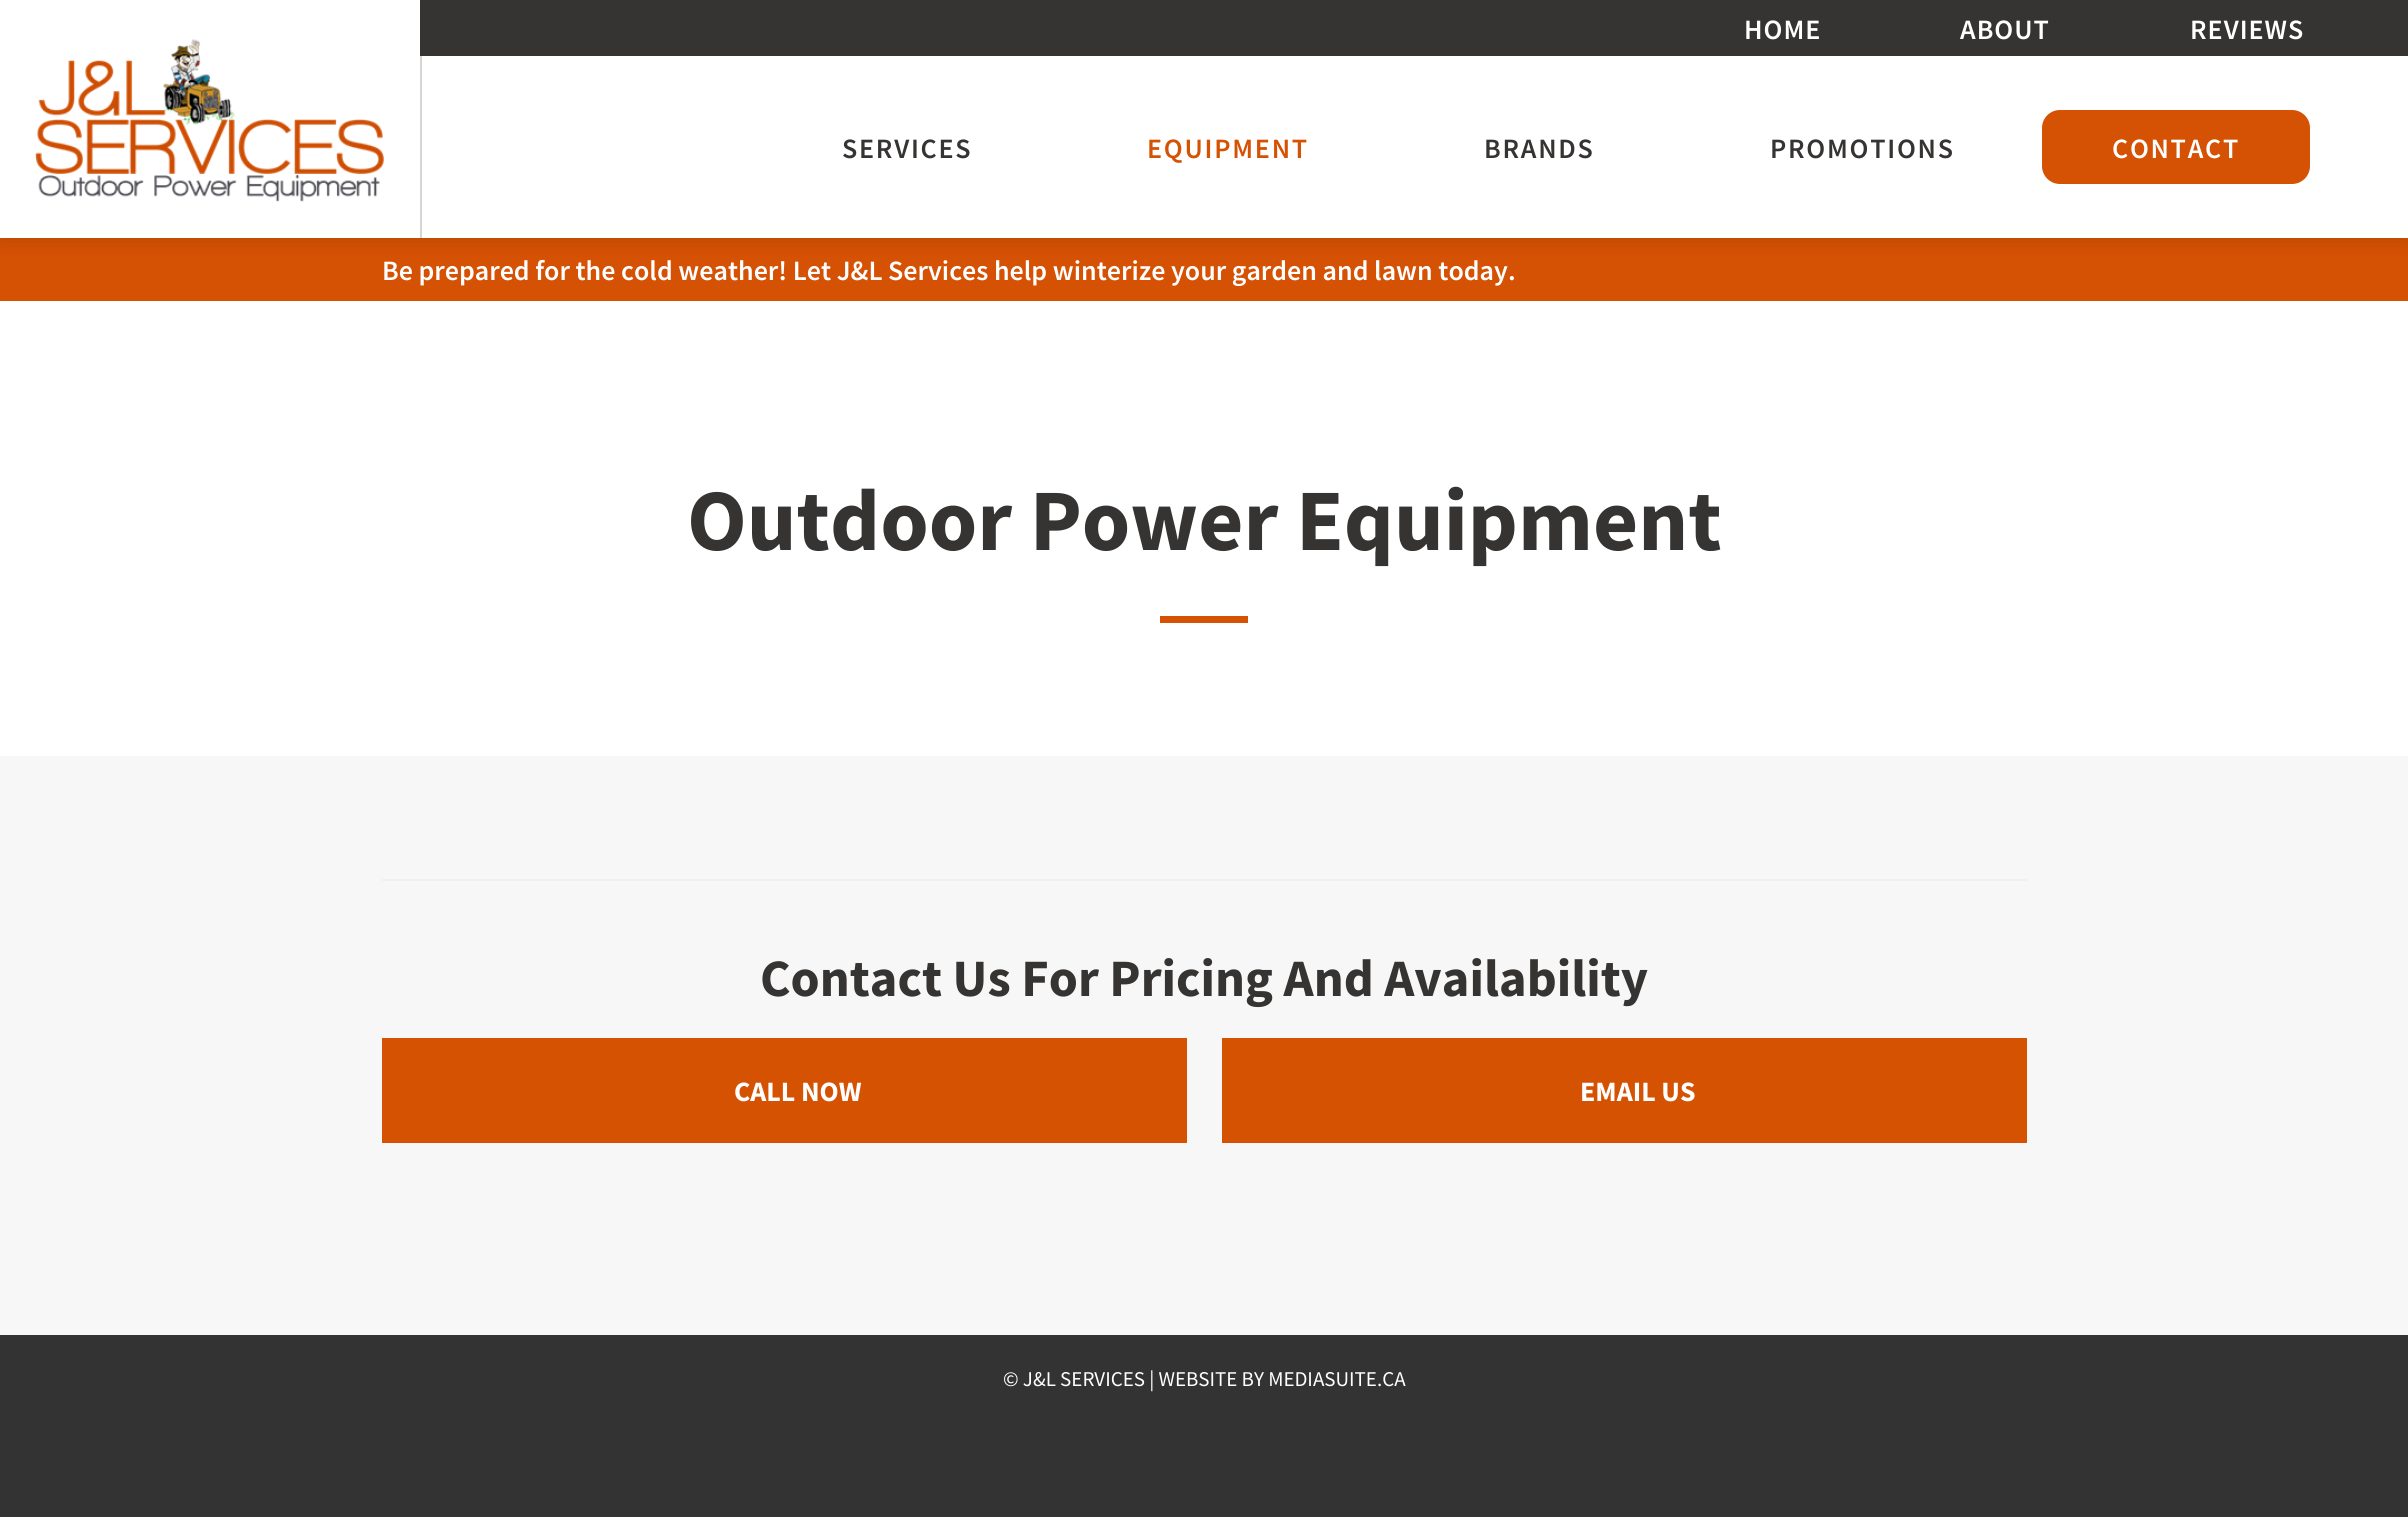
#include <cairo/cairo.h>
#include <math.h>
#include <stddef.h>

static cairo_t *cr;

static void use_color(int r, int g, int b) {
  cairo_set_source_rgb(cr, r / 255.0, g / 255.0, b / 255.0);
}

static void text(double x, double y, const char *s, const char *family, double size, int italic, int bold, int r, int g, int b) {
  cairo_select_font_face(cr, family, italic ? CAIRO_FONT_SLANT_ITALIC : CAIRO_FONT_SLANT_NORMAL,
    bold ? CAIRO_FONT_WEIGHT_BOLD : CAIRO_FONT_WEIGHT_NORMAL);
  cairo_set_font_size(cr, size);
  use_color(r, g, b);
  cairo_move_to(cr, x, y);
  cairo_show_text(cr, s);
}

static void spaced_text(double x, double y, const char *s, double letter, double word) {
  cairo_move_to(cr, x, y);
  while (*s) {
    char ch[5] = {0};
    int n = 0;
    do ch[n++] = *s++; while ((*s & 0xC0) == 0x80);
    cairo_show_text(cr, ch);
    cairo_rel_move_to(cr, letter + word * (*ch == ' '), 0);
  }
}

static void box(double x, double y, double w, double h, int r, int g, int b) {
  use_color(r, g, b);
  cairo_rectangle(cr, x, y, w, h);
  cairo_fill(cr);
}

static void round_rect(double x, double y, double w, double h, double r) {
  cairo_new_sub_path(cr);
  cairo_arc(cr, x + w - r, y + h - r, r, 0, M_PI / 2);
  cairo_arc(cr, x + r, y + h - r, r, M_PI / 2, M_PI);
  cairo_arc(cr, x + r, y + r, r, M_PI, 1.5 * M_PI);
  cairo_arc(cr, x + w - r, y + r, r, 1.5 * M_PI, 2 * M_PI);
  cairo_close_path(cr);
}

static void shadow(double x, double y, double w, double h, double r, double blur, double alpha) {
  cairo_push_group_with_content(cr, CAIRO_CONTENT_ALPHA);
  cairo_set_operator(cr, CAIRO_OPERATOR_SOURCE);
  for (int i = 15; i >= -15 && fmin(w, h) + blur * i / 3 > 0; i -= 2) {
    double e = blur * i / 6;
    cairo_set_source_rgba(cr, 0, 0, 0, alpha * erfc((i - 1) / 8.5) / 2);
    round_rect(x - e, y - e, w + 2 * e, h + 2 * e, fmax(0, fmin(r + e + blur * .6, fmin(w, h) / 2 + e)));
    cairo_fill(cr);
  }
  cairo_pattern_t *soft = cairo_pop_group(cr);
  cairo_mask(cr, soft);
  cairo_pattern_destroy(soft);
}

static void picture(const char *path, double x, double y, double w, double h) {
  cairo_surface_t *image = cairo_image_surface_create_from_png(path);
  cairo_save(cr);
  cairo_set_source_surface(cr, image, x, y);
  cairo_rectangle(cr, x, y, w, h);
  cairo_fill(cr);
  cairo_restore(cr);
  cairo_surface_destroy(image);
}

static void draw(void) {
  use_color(51, 51, 51);
  cairo_paint(cr);
  box(0, 238, 2408, 63, 213, 81, 3);
  use_color(0, 0, 0);
  shadow(0, 0, 2408, 238, 0, 10.5, 0.15);
  box(0, 0, 2408, 238, 255, 255, 255);
  box(420, 0, 1988, 56, 54, 52, 50);
  picture("img_01.png", 35, 39, 349, 163);
  box(420, 56, 2, 182, 214, 213, 211);
  use_color(213, 81, 3);
  round_rect(2042, 110, 268, 74, 18);
  cairo_fill(cr);
  box(0, 301, 2408, 455, 255, 255, 255);
  box(1160, 616, 88, 7, 213, 82, 2);
  box(0, 756, 2408, 579, 247, 247, 247);
  box(382, 879, 1645, 2, 240, 240, 240);
  box(382, 1038, 805, 105, 213, 82, 2);
  box(1222, 1038, 805, 105, 213, 82, 2);
  cairo_select_font_face(cr, "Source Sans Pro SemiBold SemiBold", CAIRO_FONT_SLANT_NORMAL, CAIRO_FONT_WEIGHT_NORMAL);
  cairo_set_font_size(cr, 28);
  use_color(255, 255, 255);
  spaced_text(1744, 39, "HOME", 1, 0);
  spaced_text(1960, 39, "ABOUT", 1, 0);
  spaced_text(2190, 39, "REVIEWS", 1, 0);
  use_color(54, 52, 50);
  spaced_text(842, 158, "SERVICES", 1.75, 0);
  use_color(213, 81, 3);
  spaced_text(1147, 158, "EQUIPMENT", 1.75, 0);
  use_color(54, 52, 50);
  spaced_text(1484, 158, "BRANDS", 1.75, 0);
  spaced_text(1770, 158, "PROMOTIONS", 1.75, 0);
  use_color(255, 255, 255);
  spaced_text(2112, 158, "CONTACT", 1.75, 0);
  text(382, 280, "Be prepared for the cold weather! Let J&L Services help winterize your garden and lawn today.", "Source Sans Pro SemiBold SemiBold", 28, 0, 0, 255, 255, 255);
  text(687, 550, "Outdoor Power Equipment", "Source Sans Pro", 87.5, 0, 1, 54, 52, 50);
  text(760, 996, "Contact Us For Pricing And Availability", "Source Sans Pro", 52.5, 0, 1, 54, 52, 50);
  text(734, 1101, "CALL NOW", "Source Sans Pro", 28, 0, 1, 255, 255, 255);
  text(1580, 1101, "EMAIL US", "Source Sans Pro", 28, 0, 1, 255, 255, 255);
  text(1003, 1386, "© J&L SERVICES | WEBSITE BY MEDIASUITE.CA", "Source Sans Pro", 21, 0, 0, 255, 255, 255);
}

int main(void) {
  cairo_surface_t *surface = cairo_image_surface_create(CAIRO_FORMAT_RGB24, 2408, 1517);
  cr = cairo_create(surface);
  cairo_font_options_t *options = cairo_font_options_create();
  cairo_font_options_set_hint_metrics(options, CAIRO_HINT_METRICS_OFF);
  cairo_font_options_set_hint_style(options, CAIRO_HINT_STYLE_NONE);
  cairo_set_font_options(cr, options);
  cairo_set_miter_limit(cr, 4);
  draw();
  cairo_surface_write_to_png(surface, "out.png");
  cairo_font_options_destroy(options);
  cairo_destroy(cr);
  cairo_surface_destroy(surface);
  return 0;
}
